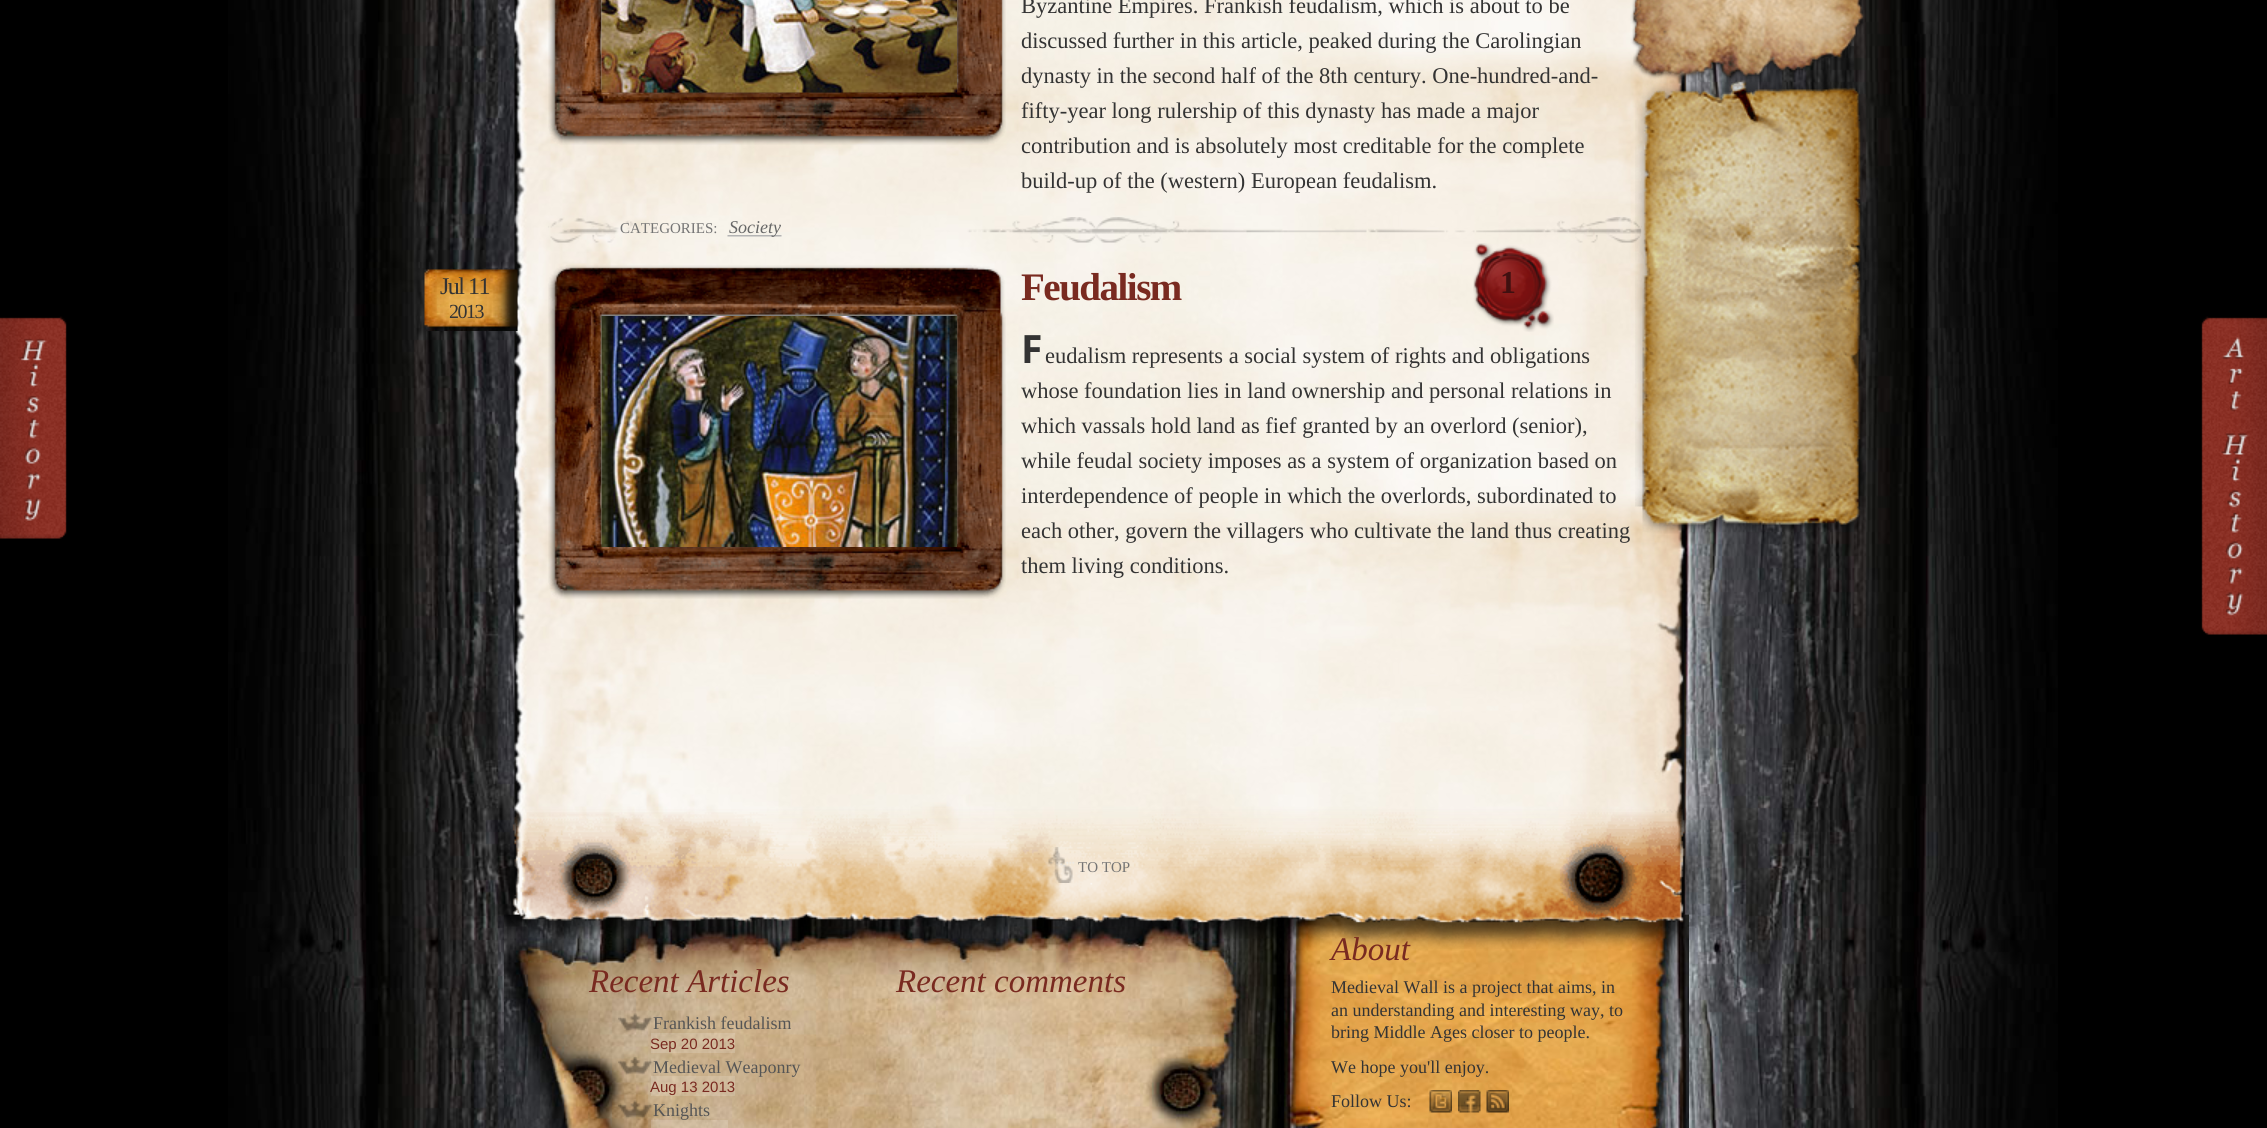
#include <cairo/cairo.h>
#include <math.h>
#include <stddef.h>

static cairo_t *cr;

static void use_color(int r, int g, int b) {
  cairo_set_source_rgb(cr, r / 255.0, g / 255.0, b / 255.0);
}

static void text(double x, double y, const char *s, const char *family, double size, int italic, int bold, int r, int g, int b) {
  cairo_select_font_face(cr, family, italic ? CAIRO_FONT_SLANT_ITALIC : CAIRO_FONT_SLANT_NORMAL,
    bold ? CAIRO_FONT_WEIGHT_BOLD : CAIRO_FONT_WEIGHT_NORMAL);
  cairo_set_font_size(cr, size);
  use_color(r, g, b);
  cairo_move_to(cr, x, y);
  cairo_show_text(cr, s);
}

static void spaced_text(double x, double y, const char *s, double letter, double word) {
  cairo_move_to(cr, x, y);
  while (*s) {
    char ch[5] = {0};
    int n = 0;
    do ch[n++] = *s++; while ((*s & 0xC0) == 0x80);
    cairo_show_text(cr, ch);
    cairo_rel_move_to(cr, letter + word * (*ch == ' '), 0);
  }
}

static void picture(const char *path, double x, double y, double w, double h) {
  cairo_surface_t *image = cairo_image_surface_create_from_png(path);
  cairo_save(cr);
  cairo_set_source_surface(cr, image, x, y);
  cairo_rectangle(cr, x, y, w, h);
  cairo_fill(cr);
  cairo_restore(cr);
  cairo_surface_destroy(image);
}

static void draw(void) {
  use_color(0, 0, 0);
  cairo_paint(cr);
  picture("img_01.png", 228, 0, 1830, 1128);
  picture("img_17.png", 504, 914, 1185, 214);
  picture("img_02.png", 514, 0, 1171, 915);
  picture("img_03.png", 548, 0, 458, 145);
  picture("img_04.png", 601, 0, 356, 93);
  picture("img_13.png", 1635, 80, 231, 454);
  picture("img_05.png", 548, 217, 1094, 26);
  picture("img_06.png", 727, 235, 55, 2);
  picture("img_07.png", 424, 269, 94, 62);
  picture("img_08.png", 548, 265, 458, 334);
  picture("img_09.png", 601, 316, 356, 231);
  picture("img_10.png", 1473, 243, 81, 89);
  picture("img_11.png", 1630, 0, 234, 81);
  picture("img_12.png", 0, 316, 67, 223);
  picture("img_14.png", 2201, 316, 66, 319);
  picture("img_15.png", 489, 809, 1218, 140);
  picture("img_16.png", 1048, 847, 25, 36);
  picture("img_18.png", 618, 1013, 35, 19);
  cairo_set_source_rgba(cr, 1, 1, 1, 0.15);
  cairo_rectangle(cr, 651, 1033, 84, 20);
  cairo_fill(cr);
  picture("img_19.png", 618, 1057, 35, 18);
  picture("img_20.png", 618, 1100, 35, 19);
  cairo_rectangle(cr, 651, 1120, 77, 8);
  cairo_fill(cr);
  picture("img_21.png", 1429, 1090, 23, 23);
  picture("img_22.png", 1458, 1090, 23, 23);
  picture("img_23.png", 1486, 1090, 23, 23);
  text(1021, 13, "Byzantine Empires. Frankish feudalism, which is about to be", "Liberation Serif", 22.5, 0, 0, 51, 51, 51);
  text(1021, 48, "discussed further in this article, peaked during the Carolingian", "Liberation Serif", 22.5, 0, 0, 51, 51, 51);
  text(1021, 83, "dynasty in the second half of the 8th century. One-hundred-and-", "Liberation Serif", 22.5, 0, 0, 51, 51, 51);
  text(1021, 118, "fifty-year long rulership of this dynasty has made a major", "Liberation Serif", 22.5, 0, 0, 51, 51, 51);
  text(1021, 153, "contribution and is absolutely most creditable for the complete", "Liberation Serif", 22.5, 0, 0, 51, 51, 51);
  text(1021, 188, "build-up of the (western) European feudalism.", "Liberation Serif", 22.5, 0, 0, 51, 51, 51);
  text(620, 233, "CATEGORIES:", "Liberation Serif", 15, 0, 0, 116, 116, 116);
  text(729, 233, "Society", "Liberation Serif", 18, 1, 0, 102, 102, 102);
  cairo_select_font_face(cr, "Liberation Serif", CAIRO_FONT_SLANT_NORMAL, CAIRO_FONT_WEIGHT_NORMAL);
  cairo_set_font_size(cr, 24);
  use_color(51, 51, 51);
  spaced_text(440, 294, "Jul 11", -1.5, 0);
  cairo_set_font_size(cr, 20);
  spaced_text(449, 318, "2013", -1.5, 0);
  cairo_select_font_face(cr, "Liberation Serif", CAIRO_FONT_SLANT_NORMAL, CAIRO_FONT_WEIGHT_BOLD);
  cairo_set_font_size(cr, 39);
  use_color(121, 42, 32);
  spaced_text(1021, 300, "Feudalism", -1.5, 0);
  text(1500, 293, "1", "Liberation Serif", 32, 0, 1, 63, 16, 16);
  cairo_select_font_face(cr, "Noto Sans", CAIRO_FONT_SLANT_NORMAL, CAIRO_FONT_WEIGHT_BOLD);
  cairo_set_font_size(cr, 39);
  use_color(51, 51, 51);
  spaced_text(1021, 363, "F", 3, 0);
  text(1045, 363, "eudalism represents a social system of rights and obligations", "Liberation Serif", 22.5, 0, 0, 51, 51, 51);
  text(1021, 398, "whose foundation lies in land ownership and personal relations in", "Liberation Serif", 22.5, 0, 0, 51, 51, 51);
  text(1021, 433, "which vassals hold land as fief granted by an overlord (senior),", "Liberation Serif", 22.5, 0, 0, 51, 51, 51);
  text(1021, 468, "while feudal society imposes as a system of organization based on", "Liberation Serif", 22.5, 0, 0, 51, 51, 51);
  text(1021, 503, "interdependence of people in which the overlords, subordinated to", "Liberation Serif", 22.5, 0, 0, 51, 51, 51);
  text(1021, 538, "each other, govern the villagers who cultivate the land thus creating", "Liberation Serif", 22.5, 0, 0, 51, 51, 51);
  text(1021, 573, "them living conditions.", "Liberation Serif", 22.5, 0, 0, 51, 51, 51);
  text(1078, 872, "TO TOP", "Liberation Serif", 15, 0, 0, 116, 116, 116);
  text(589, 992, "Recent Articles", "Liberation Serif", 33, 1, 0, 121, 42, 32);
  text(653, 1029, "Frankish feudalism", "Liberation Serif", 18, 0, 0, 85, 85, 85);
  text(650, 1049, "Sep 20 2013", "Liberation Sans", 15, 0, 0, 121, 42, 32);
  text(653, 1073, "Medieval Weaponry", "Liberation Serif", 18, 0, 0, 85, 85, 85);
  cairo_set_source_rgba(cr, 1, 1, 1, 0.15);
  cairo_rectangle(cr, 651, 1076, 84, 20);
  cairo_fill(cr);
  text(650, 1092, "Aug 13 2013", "Liberation Sans", 15, 0, 0, 121, 42, 32);
  text(653, 1116, "Knights", "Liberation Serif", 18, 0, 0, 85, 85, 85);
  text(896, 992, "Recent comments", "Liberation Serif", 33, 1, 0, 121, 42, 32);
  text(1331, 960, "About", "Liberation Serif", 33, 1, 0, 121, 42, 32);
  text(1331, 993, "Medieval Wall is a project that aims, in", "Liberation Serif", 18, 0, 0, 51, 51, 51);
  text(1331, 1016, "an understanding and interesting way, to", "Liberation Serif", 18, 0, 0, 51, 51, 51);
  text(1331, 1038, "bring Middle Ages closer to people.", "Liberation Serif", 18, 0, 0, 51, 51, 51);
  text(1331, 1073, "We hope you'll enjoy.", "Liberation Serif", 18, 0, 0, 51, 51, 51);
  text(1331, 1107, "Follow Us:", "Liberation Serif", 18, 0, 0, 51, 51, 51);
}

int main(void) {
  cairo_surface_t *surface = cairo_image_surface_create(CAIRO_FORMAT_RGB24, 2267, 1128);
  cr = cairo_create(surface);
  cairo_font_options_t *options = cairo_font_options_create();
  cairo_font_options_set_hint_metrics(options, CAIRO_HINT_METRICS_OFF);
  cairo_font_options_set_hint_style(options, CAIRO_HINT_STYLE_NONE);
  cairo_set_font_options(cr, options);
  cairo_set_miter_limit(cr, 4);
  draw();
  cairo_surface_write_to_png(surface, "out.png");
  cairo_font_options_destroy(options);
  cairo_destroy(cr);
  cairo_surface_destroy(surface);
  return 0;
}
